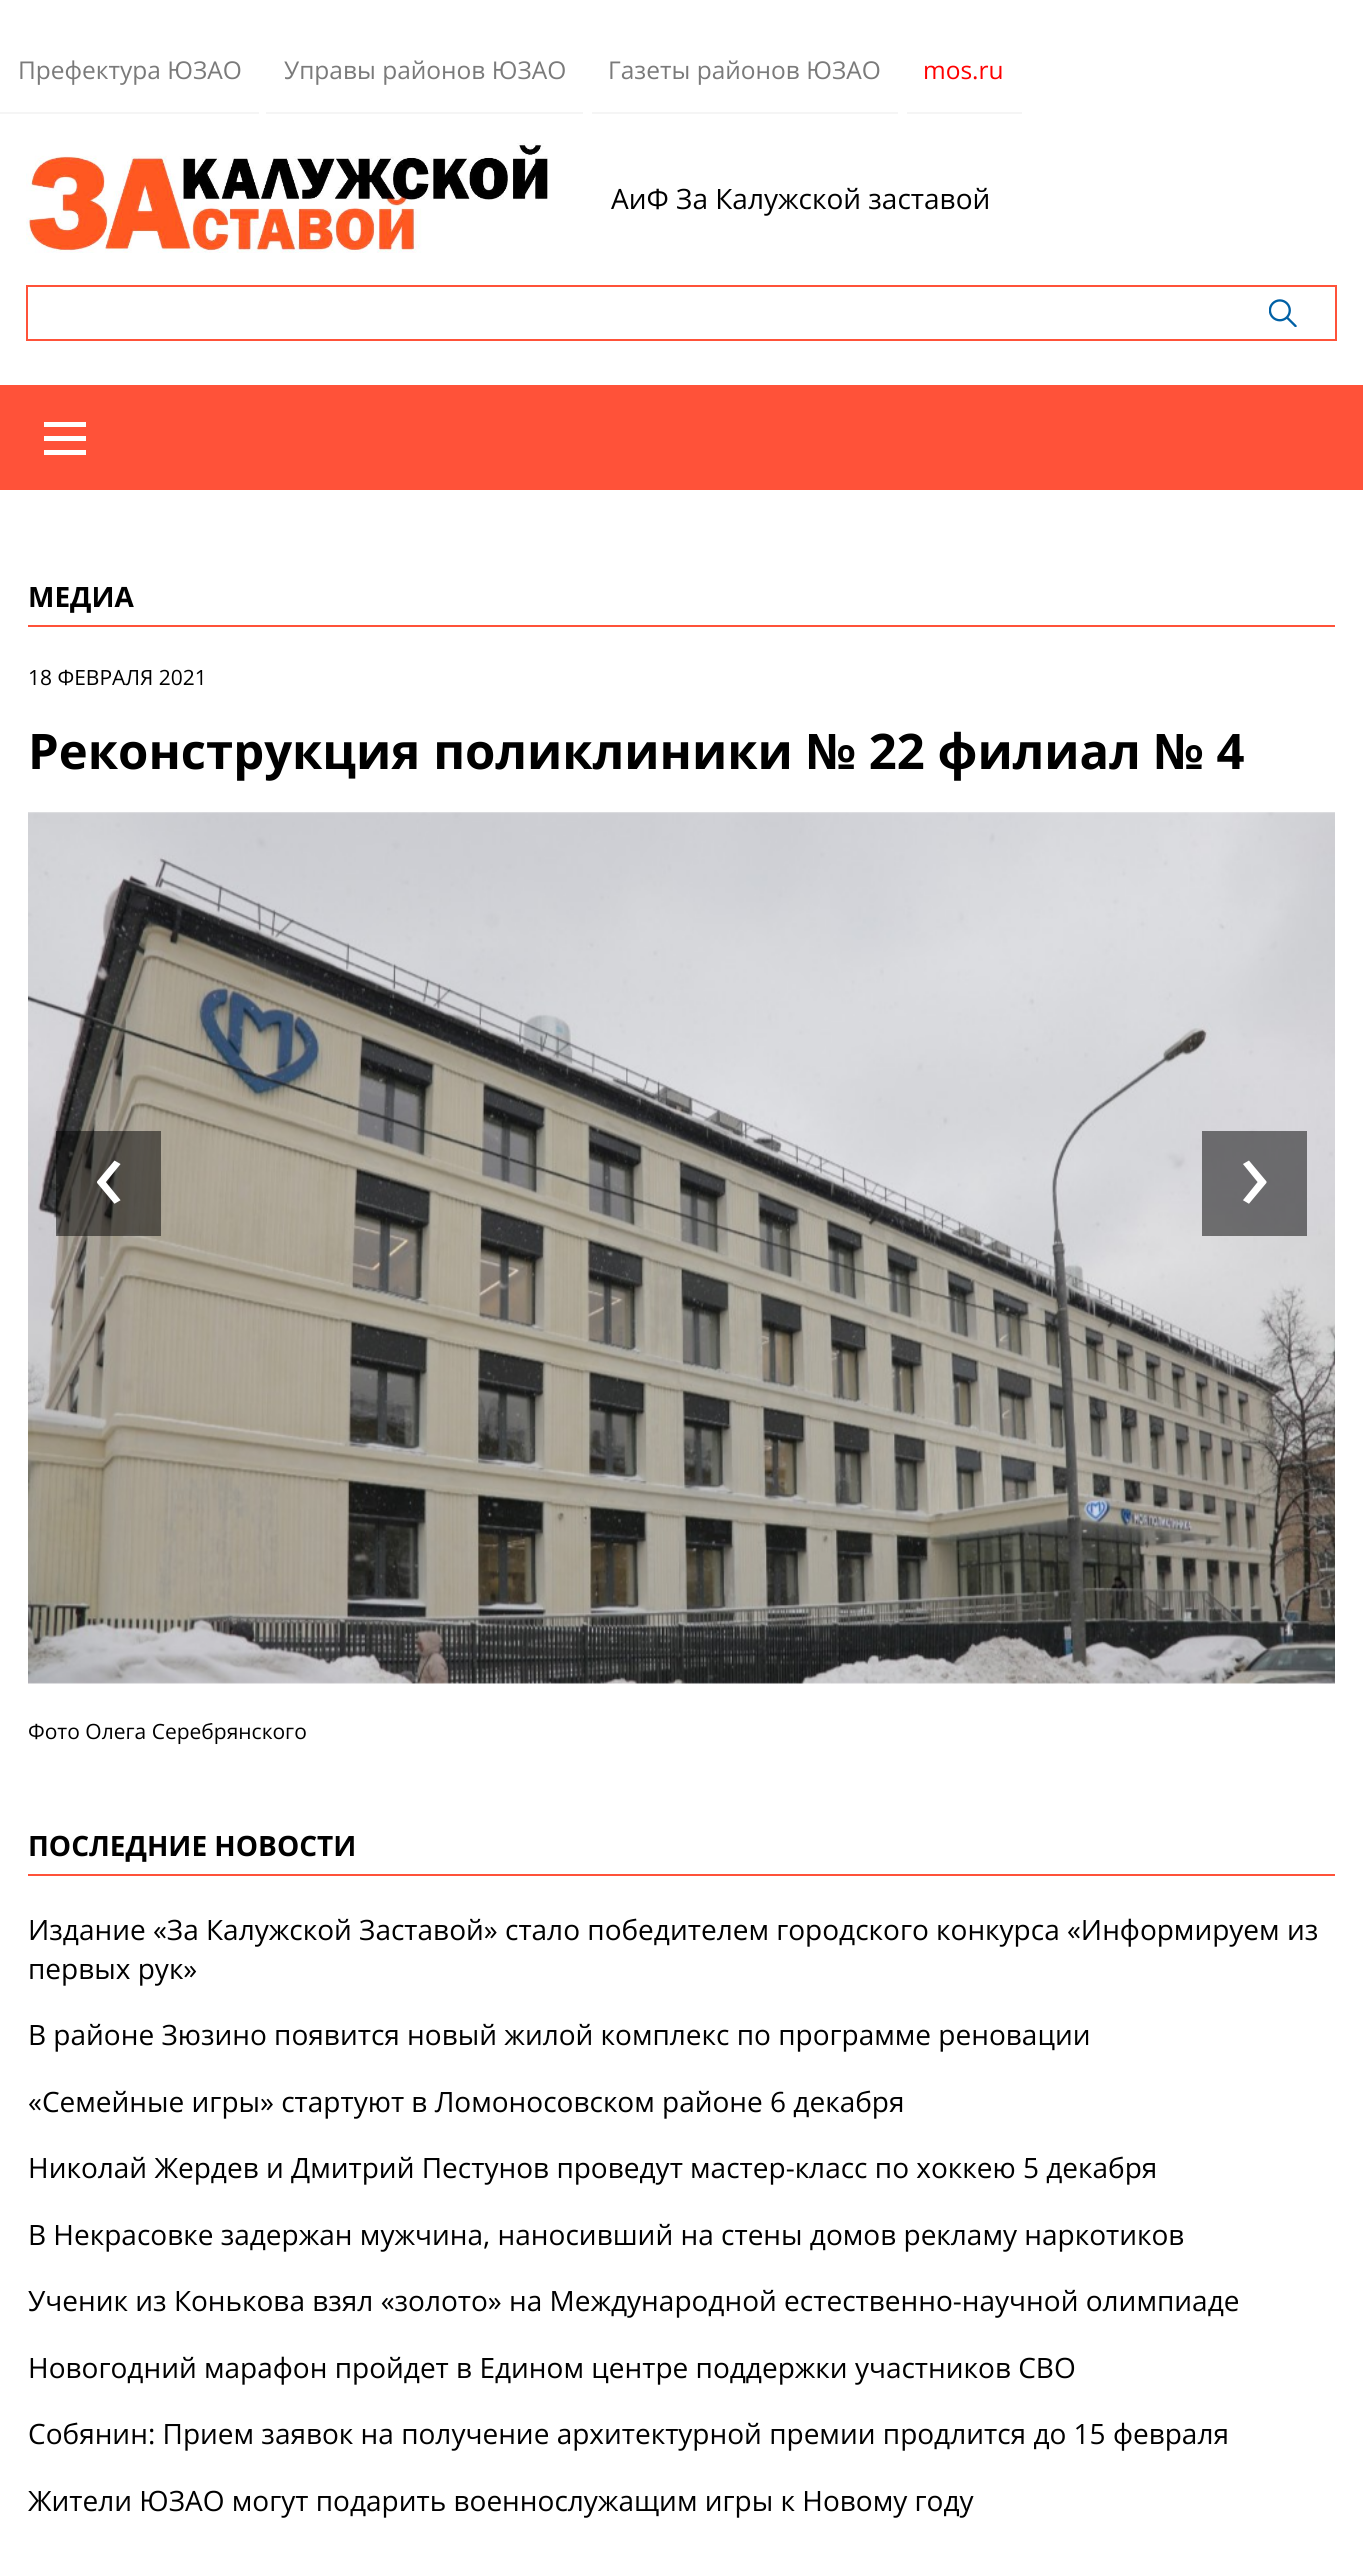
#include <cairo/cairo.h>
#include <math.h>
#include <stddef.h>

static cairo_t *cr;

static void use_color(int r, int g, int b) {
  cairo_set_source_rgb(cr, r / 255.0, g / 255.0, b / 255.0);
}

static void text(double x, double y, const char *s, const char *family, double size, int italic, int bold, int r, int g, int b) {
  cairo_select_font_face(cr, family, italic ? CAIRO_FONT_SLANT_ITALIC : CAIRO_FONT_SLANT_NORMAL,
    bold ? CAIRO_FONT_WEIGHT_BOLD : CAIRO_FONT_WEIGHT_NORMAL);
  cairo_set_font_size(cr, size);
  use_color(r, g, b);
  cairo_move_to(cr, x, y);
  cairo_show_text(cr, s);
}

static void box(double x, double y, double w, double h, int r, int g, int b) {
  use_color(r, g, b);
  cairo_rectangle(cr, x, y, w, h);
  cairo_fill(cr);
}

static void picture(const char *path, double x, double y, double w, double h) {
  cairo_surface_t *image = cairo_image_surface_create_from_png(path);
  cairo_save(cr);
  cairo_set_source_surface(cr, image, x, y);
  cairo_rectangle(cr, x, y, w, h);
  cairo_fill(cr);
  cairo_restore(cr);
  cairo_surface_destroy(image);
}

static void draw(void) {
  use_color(255, 255, 255);
  cairo_paint(cr);
  box(0, 112, 259, 2, 245, 245, 245);
  cairo_new_path(cr);
  cairo_move_to(cr, 266, 112);
  cairo_line_to(cr, 266, 114);
  cairo_line_to(cr, 583, 114);
  cairo_line_to(cr, 583, 30);
  cairo_line_to(cr, 583, 112);
  cairo_close_path(cr);
  cairo_fill(cr);
  cairo_new_path(cr);
  cairo_move_to(cr, 592, 112);
  cairo_line_to(cr, 592, 114);
  cairo_line_to(cr, 898, 114);
  cairo_line_to(cr, 898, 30);
  cairo_line_to(cr, 898, 112);
  cairo_close_path(cr);
  cairo_fill(cr);
  box(907, 112, 115, 2, 245, 245, 245);
  picture("img_01.png", 26, 143, 522, 110);
  picture("img_02.png", 1269, 299, 28, 28);
  cairo_rectangle(cr, 27, 286, 1309, 54);
  use_color(255, 82, 57);
  cairo_stroke(cr);
  box(0, 385, 1363, 105, 255, 82, 57);
  box(44, 422, 42, 5, 255, 255, 255);
  box(44, 436, 42, 5, 255, 255, 255);
  box(44, 450, 42, 5, 255, 255, 255);
  box(28, 625, 1307, 2, 255, 82, 57);
  picture("img_03.png", 28, 812, 1307, 872);
  cairo_set_source_rgba(cr, 0, 0, 0, 0.5);
  cairo_rectangle(cr, 56, 1131, 105, 105);
  cairo_fill(cr);
  cairo_rectangle(cr, 1202, 1131, 105, 105);
  cairo_fill(cr);
  box(28, 1874, 1307, 2, 255, 82, 57);
  text(18, 79, "Префектура ЮЗАО", "Open Sans", 24.5, 0, 0, 122, 122, 122);
  text(284, 79, "Управы районов ЮЗАО", "Open Sans", 24.5, 0, 0, 122, 122, 122);
  text(608, 79, "Газеты районов ЮЗАО", "Open Sans", 24.5, 0, 0, 122, 122, 122);
  text(923, 79, "mos.ru", "Open Sans", 24.5, 0, 0, 255, 0, 0);
  text(611, 209, "АиФ За Калужской заставой", "Open Sans", 28, 0, 0, 0, 0, 0);
  text(28, 607, "МЕДИА", "Open Sans", 28, 0, 1, 0, 0, 0);
  text(28, 685, "18 ФЕВРАЛЯ 2021", "Open Sans", 21, 0, 0, 0, 0, 0);
  text(28, 769, "Реконструкция поликлиники № 22 филиал № 4", "Open Sans", 49, 0, 1, 0, 0, 0);
  text(93, 1210, "‹", "Open Sans", 105, 0, 0, 255, 255, 255);
  text(1239, 1210, "›", "Open Sans", 105, 0, 0, 255, 255, 255);
  text(28, 1739, "Фото Олега Серебрянского", "Open Sans", 21, 0, 0, 0, 0, 0);
  text(28, 1856, "ПОСЛЕДНИЕ НОВОСТИ", "Open Sans", 28, 0, 1, 0, 0, 0);
  text(28, 1940, "Издание «За Калужской Заставой» стало победителем городского конкурса «Информируем из", "Open Sans", 28, 0, 0, 0, 0, 0);
  text(28, 1979, "первых рук»", "Open Sans", 28, 0, 0, 0, 0, 0);
  text(28, 2045, "В районе Зюзино появится новый жилой комплекс по программе реновации", "Open Sans", 28, 0, 0, 0, 0, 0);
  text(28, 2112, "«Семейные игры» стартуют в Ломоносовском районе 6 декабря", "Open Sans", 28, 0, 0, 0, 0, 0);
  text(28, 2178, "Николай Жердев и Дмитрий Пестунов проведут мастер-класс по хоккею 5 декабря", "Open Sans", 28, 0, 0, 0, 0, 0);
  text(28, 2245, "В Некрасовке задержан мужчина, наносивший на стены домов рекламу наркотиков", "Open Sans", 28, 0, 0, 0, 0, 0);
  text(28, 2311, "Ученик из Конькова взял «золото» на Международной естественно-научной олимпиаде", "Open Sans", 28, 0, 0, 0, 0, 0);
  text(28, 2378, "Новогодний марафон пройдет в Едином центре поддержки участников СВО", "Open Sans", 28, 0, 0, 0, 0, 0);
  text(28, 2444, "Собянин: Прием заявок на получение архитектурной премии продлится до 15 февраля", "Open Sans", 28, 0, 0, 0, 0, 0);
  text(28, 2511, "Жители ЮЗАО могут подарить военнослужащим игры к Новому году", "Open Sans", 28, 0, 0, 0, 0, 0);
}

int main(void) {
  cairo_surface_t *surface = cairo_image_surface_create(CAIRO_FORMAT_RGB24, 1363, 2558);
  cr = cairo_create(surface);
  cairo_font_options_t *options = cairo_font_options_create();
  cairo_font_options_set_hint_metrics(options, CAIRO_HINT_METRICS_OFF);
  cairo_font_options_set_hint_style(options, CAIRO_HINT_STYLE_NONE);
  cairo_set_font_options(cr, options);
  cairo_set_miter_limit(cr, 4);
  draw();
  cairo_surface_write_to_png(surface, "out.png");
  cairo_font_options_destroy(options);
  cairo_destroy(cr);
  cairo_surface_destroy(surface);
  return 0;
}
